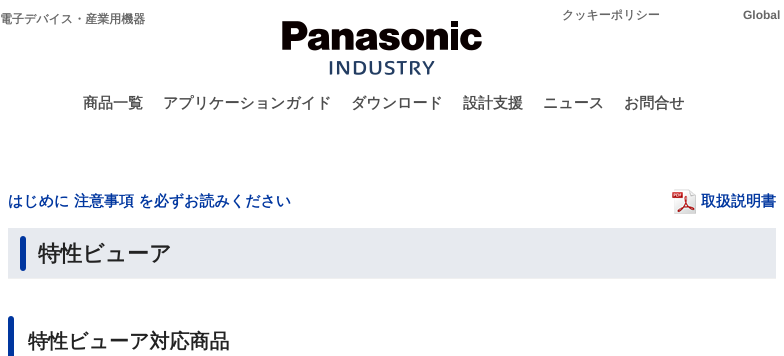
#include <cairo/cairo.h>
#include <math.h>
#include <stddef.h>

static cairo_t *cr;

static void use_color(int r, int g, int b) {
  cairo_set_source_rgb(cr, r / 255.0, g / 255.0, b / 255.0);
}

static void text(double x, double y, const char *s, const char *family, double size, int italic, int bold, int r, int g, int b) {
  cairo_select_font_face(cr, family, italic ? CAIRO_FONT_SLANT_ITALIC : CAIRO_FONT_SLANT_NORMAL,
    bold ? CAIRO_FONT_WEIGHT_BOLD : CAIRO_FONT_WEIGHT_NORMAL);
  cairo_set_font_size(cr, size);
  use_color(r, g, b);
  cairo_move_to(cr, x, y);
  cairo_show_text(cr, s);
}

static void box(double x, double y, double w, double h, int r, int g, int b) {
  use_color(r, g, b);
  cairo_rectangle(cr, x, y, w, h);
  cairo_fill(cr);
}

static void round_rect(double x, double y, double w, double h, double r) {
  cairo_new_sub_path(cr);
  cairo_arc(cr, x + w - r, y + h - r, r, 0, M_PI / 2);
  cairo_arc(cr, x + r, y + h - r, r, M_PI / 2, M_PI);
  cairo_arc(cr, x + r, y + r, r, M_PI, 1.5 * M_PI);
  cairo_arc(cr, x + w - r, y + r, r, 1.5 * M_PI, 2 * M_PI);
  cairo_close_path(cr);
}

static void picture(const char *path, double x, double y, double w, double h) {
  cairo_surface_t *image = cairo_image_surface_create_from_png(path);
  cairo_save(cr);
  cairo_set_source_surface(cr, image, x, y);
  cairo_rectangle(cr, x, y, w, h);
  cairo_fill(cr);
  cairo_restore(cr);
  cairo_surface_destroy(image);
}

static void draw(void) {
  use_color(255, 255, 255);
  cairo_paint(cr);
  picture("img_01.png", 282, 21, 200, 54);
  picture("img_02.png", 672, 189, 24, 25);
  box(8, 228, 768, 50, 231, 234, 239);
  box(8, 278, 768, 1, 240, 240, 240);
  use_color(0, 54, 159);
  round_rect(20, 236, 6, 35, 3);
  cairo_fill(cr);
  round_rect(8, 316, 6, 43, 3);
  cairo_fill(cr);
  text(0, 23, "電子デバイス・産業用機器", "WenQuanYi Zen Hei", 12, 0, 1, 102, 102, 102);
  text(562, 19, "クッキーポリシー", "WenQuanYi Zen Hei", 12, 0, 1, 102, 102, 102);
  text(743, 19, "Global", "Liberation Sans", 12, 0, 1, 102, 102, 102);
  text(83, 108, "商品一覧", "WenQuanYi Zen Hei", 15, 0, 1, 77, 77, 77);
  text(163, 108, "アプリケーションガイド", "WenQuanYi Zen Hei", 15, 0, 1, 77, 77, 77);
  text(351, 108, "ダウンロード", "WenQuanYi Zen Hei", 15, 0, 1, 77, 77, 77);
  text(463, 108, "設計支援", "WenQuanYi Zen Hei", 15, 0, 1, 77, 77, 77);
  text(543, 108, "ニュース", "WenQuanYi Zen Hei", 15, 0, 1, 77, 77, 77);
  text(624, 108, "お問合せ", "WenQuanYi Zen Hei", 15, 0, 1, 77, 77, 77);
  text(8, 206, "はじめに 注意事項 を必ずお読みください", "WenQuanYi Zen Hei", 15, 0, 1, 0, 54, 159);
  text(701, 206, "取扱説明書", "WenQuanYi Zen Hei", 15, 0, 1, 0, 54, 159);
  text(38, 261, "特性ビューア", "WenQuanYi Zen Hei", 22, 0, 1, 34, 34, 34);
  text(28, 348, "特性ビューア対応商品", "WenQuanYi Zen Hei", 20, 0, 1, 34, 34, 34);
}

int main(void) {
  cairo_surface_t *surface = cairo_image_surface_create(CAIRO_FORMAT_RGB24, 784, 356);
  cr = cairo_create(surface);
  cairo_font_options_t *options = cairo_font_options_create();
  cairo_font_options_set_hint_metrics(options, CAIRO_HINT_METRICS_OFF);
  cairo_font_options_set_hint_style(options, CAIRO_HINT_STYLE_NONE);
  cairo_set_font_options(cr, options);
  cairo_set_miter_limit(cr, 4);
  draw();
  cairo_surface_write_to_png(surface, "out.png");
  cairo_font_options_destroy(options);
  cairo_destroy(cr);
  cairo_surface_destroy(surface);
  return 0;
}
